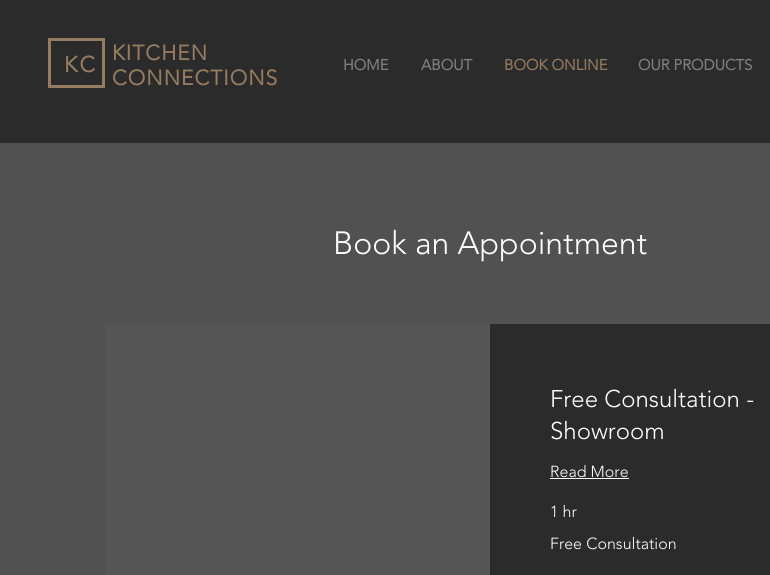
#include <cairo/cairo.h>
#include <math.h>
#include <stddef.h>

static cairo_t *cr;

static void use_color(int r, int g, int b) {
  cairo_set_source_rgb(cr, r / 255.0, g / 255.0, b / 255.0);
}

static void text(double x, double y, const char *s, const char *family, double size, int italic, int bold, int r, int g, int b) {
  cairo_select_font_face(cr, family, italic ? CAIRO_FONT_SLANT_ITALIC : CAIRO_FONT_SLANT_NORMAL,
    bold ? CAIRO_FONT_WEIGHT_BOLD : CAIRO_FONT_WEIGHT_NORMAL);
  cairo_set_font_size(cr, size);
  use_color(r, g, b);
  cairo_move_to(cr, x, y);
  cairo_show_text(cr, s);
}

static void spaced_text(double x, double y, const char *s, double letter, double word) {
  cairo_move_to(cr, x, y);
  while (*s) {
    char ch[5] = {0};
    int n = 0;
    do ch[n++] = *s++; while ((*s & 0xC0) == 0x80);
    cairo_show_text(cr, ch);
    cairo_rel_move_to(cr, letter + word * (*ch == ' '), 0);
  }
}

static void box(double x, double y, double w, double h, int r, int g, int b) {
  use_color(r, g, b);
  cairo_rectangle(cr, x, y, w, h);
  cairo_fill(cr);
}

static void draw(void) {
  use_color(43, 43, 43);
  cairo_paint(cr);
  cairo_rectangle(cr, 49.5, 39.5, 54, 47);
  use_color(149, 123, 95);
  cairo_set_line_width(cr, 3);
  cairo_stroke(cr);
  box(0, 143, 770, 432, 81, 81, 81);
  box(490, 324, 280, 251, 43, 43, 43);
  cairo_rectangle(cr, 105.5, 323.5, 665, 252);
  use_color(85, 85, 85);
  cairo_set_line_width(cr, 1);
  cairo_stroke(cr);
  box(106, 324, 384, 251, 85, 85, 85);
  box(550, 478, 79, 1, 255, 255, 255);
  cairo_select_font_face(cr, "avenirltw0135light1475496", CAIRO_FONT_SLANT_NORMAL, CAIRO_FONT_WEIGHT_BOLD);
  cairo_set_font_size(cr, 22);
  use_color(149, 123, 95);
  spaced_text(64, 72, "KC", 2, 0);
  cairo_set_font_size(cr, 21);
  spaced_text(112, 60, "KITCHEN", 1, 0);
  spaced_text(112, 85, "CONNECTIONS", 1, 0);
  text(343, 70, "HOME", "avenirltw0135light1475496", 15, 0, 1, 128, 128, 128);
  text(421, 70, "ABOUT", "avenirltw0135light1475496", 15, 0, 1, 128, 128, 128);
  text(504, 70, "BOOK ONLINE", "avenirltw0135light1475496", 15, 0, 1, 149, 123, 95);
  text(638, 70, "OUR PRODUCTS", "avenirltw0135light1475496", 15, 0, 1, 128, 128, 128);
  text(333, 254, "Book an Appointment", "avenirltw0135light1475496 Light", 32, 0, 0, 255, 255, 255);
  text(550, 407, "Free Consultation -", "avenirltw0135light1475496 Light", 24, 0, 0, 255, 255, 255);
  text(550, 439, "Showroom", "avenirltw0135light1475496 Light", 24, 0, 0, 255, 255, 255);
  text(550, 477, "Read More", "avenirltw0135light1475496 Light", 16, 0, 0, 255, 255, 255);
  text(550, 517, "1 hr", "avenirltw0135light1475496 Light", 16, 0, 0, 255, 255, 255);
  text(550, 549, "Free Consultation", "avenirltw0135light1475496 Light", 16, 0, 0, 255, 255, 255);
}

int main(void) {
  cairo_surface_t *surface = cairo_image_surface_create(CAIRO_FORMAT_RGB24, 770, 575);
  cr = cairo_create(surface);
  cairo_font_options_t *options = cairo_font_options_create();
  cairo_font_options_set_hint_metrics(options, CAIRO_HINT_METRICS_OFF);
  cairo_font_options_set_hint_style(options, CAIRO_HINT_STYLE_NONE);
  cairo_set_font_options(cr, options);
  cairo_set_miter_limit(cr, 4);
  draw();
  cairo_surface_write_to_png(surface, "out.png");
  cairo_font_options_destroy(options);
  cairo_destroy(cr);
  cairo_surface_destroy(surface);
  return 0;
}
